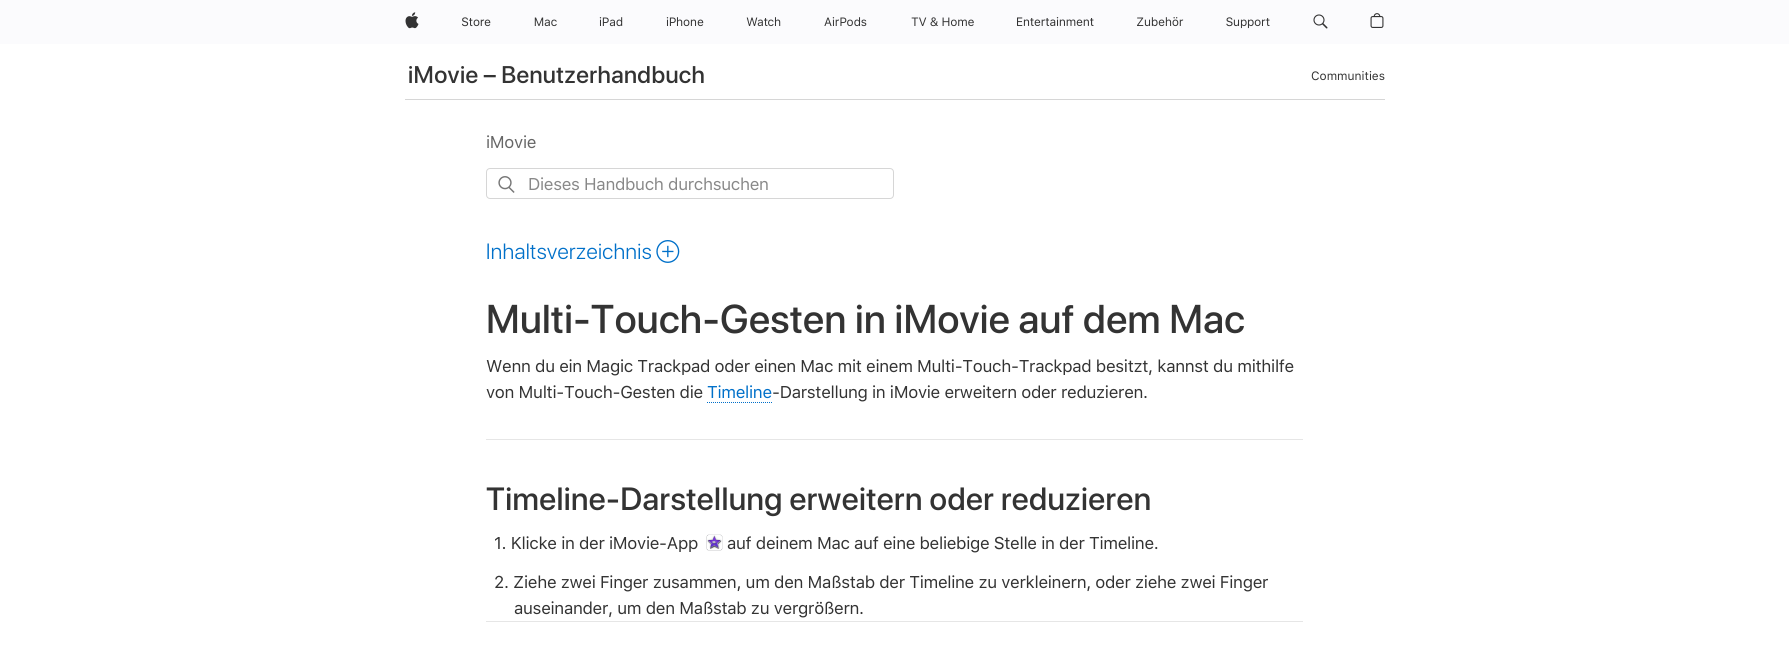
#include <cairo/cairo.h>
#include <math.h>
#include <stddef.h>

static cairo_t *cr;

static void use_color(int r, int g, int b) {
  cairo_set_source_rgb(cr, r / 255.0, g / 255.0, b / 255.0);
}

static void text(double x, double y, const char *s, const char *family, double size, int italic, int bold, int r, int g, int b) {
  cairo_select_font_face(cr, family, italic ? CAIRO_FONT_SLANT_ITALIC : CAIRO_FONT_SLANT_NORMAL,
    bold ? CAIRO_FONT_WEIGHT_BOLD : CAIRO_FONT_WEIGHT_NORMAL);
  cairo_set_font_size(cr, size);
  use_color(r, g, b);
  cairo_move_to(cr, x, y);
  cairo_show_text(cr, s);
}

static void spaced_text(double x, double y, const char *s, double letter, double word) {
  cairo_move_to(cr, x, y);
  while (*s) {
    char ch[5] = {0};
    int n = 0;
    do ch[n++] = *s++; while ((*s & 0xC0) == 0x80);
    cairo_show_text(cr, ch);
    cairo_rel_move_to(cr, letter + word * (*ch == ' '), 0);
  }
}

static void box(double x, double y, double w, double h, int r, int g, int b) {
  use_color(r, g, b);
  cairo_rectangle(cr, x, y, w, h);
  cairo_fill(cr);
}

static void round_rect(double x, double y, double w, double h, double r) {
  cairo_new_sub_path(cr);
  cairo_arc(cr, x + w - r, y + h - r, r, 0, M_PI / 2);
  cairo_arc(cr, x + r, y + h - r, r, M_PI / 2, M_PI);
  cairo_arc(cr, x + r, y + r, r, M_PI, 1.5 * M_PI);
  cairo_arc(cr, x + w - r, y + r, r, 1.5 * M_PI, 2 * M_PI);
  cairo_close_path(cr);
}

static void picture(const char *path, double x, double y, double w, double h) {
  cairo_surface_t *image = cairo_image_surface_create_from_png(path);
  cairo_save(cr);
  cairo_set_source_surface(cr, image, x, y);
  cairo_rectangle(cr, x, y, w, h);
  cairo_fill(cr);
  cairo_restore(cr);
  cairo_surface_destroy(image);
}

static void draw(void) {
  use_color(255, 255, 255);
  cairo_paint(cr);
  box(0, 0, 1789, 44, 251, 251, 253);
  picture("img_01.png", 405, 12, 14, 17);
  picture("img_02.png", 462, 17, 29, 10);
  picture("img_03.png", 534, 17, 23, 10);
  picture("img_04.png", 599, 17, 24, 10);
  picture("img_05.png", 666, 17, 38, 10);
  picture("img_06.png", 746, 17, 35, 10);
  picture("img_07.png", 824, 17, 43, 10);
  picture("img_08.png", 911, 17, 63, 10);
  picture("img_09.png", 1017, 17, 77, 9);
  picture("img_10.png", 1137, 17, 47, 10);
  picture("img_11.png", 1226, 17, 44, 12);
  picture("img_12.png", 1313, 14, 15, 15);
  picture("img_13.png", 1370, 13, 14, 15);
  box(405, 99, 980, 1, 214, 214, 214);
  round_rect(486.5, 168.5, 407, 30, 3.5);
  cairo_set_line_width(cr, 1);
  cairo_stroke(cr);
  picture("img_14.png", 498, 176, 17, 17);
  picture("img_15.png", 656, 240, 24, 23);
  cairo_new_path(cr);
  cairo_move_to(cr, 707, 402.5);
  cairo_line_to(cr, 772, 402.5);
  use_color(0, 112, 201);
  cairo_set_dash(cr, (double[]){1, 1}, 2, 0);
  cairo_stroke(cr);
  box(486, 439, 817, 1, 230, 230, 230);
  box(486, 621, 817, 1, 230, 230, 230);
  picture("img_16.png", 706, 534, 17, 17);
  cairo_select_font_face(cr, "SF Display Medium", CAIRO_FONT_SLANT_NORMAL, CAIRO_FONT_WEIGHT_NORMAL);
  cairo_set_font_size(cr, 24);
  use_color(51, 51, 51);
  spaced_text(408, 83, "iMovie – Benutzerhandbuch", 0.35, 0);
  text(1311, 80, "Communities", "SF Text", 12, 0, 0, 51, 51, 51);
  cairo_set_font_size(cr, 17);
  use_color(102, 102, 102);
  spaced_text(486, 148, "iMovie", -0.35, 0);
  use_color(136, 136, 136);
  spaced_text(528, 190, "Dieses Handbuch durchsuchen", -0.35, 0);
  cairo_select_font_face(cr, "SF Display Light", CAIRO_FONT_SLANT_NORMAL, CAIRO_FONT_WEIGHT_NORMAL);
  cairo_set_font_size(cr, 22);
  use_color(0, 112, 201);
  spaced_text(486, 259, "Inhaltsverzeichnis", 0.35, 0);
  cairo_select_font_face(cr, "SF Display Medium", CAIRO_FONT_SLANT_NORMAL, CAIRO_FONT_WEIGHT_NORMAL);
  cairo_set_font_size(cr, 40);
  use_color(51, 51, 51);
  spaced_text(486, 333, "Multi-Touch-Gesten in iMovie auf dem Mac", 0.3, 0);
  cairo_select_font_face(cr, "SF Text", CAIRO_FONT_SLANT_NORMAL, CAIRO_FONT_WEIGHT_NORMAL);
  cairo_set_font_size(cr, 17);
  spaced_text(486, 372, "Wenn du ein Magic Trackpad oder einen Mac mit einem Multi-Touch-Trackpad besitzt, kannst du mithilfe", -0.35, 0);
  spaced_text(486, 398, "von Multi-Touch-Gesten die", -0.35, 0);
  use_color(0, 112, 201);
  spaced_text(707, 398, "Timeline", -0.35, 0);
  use_color(51, 51, 51);
  spaced_text(772, 398, "-Darstellung in iMovie erweitern oder reduzieren.", -0.35, 0);
  cairo_select_font_face(cr, "SF Display Medium", CAIRO_FONT_SLANT_NORMAL, CAIRO_FONT_WEIGHT_NORMAL);
  cairo_set_font_size(cr, 32);
  spaced_text(486, 510, "Timeline-Darstellung erweitern oder reduzieren", 0.35, 0);
  cairo_select_font_face(cr, "SF Text", CAIRO_FONT_SLANT_NORMAL, CAIRO_FONT_WEIGHT_NORMAL);
  cairo_set_font_size(cr, 17);
  spaced_text(494, 549, "1. Klicke in der iMovie-App", -0.35, 0);
  spaced_text(727, 549, "auf deinem Mac auf eine beliebige Stelle in der Timeline.", -0.35, 0);
  spaced_text(494, 588, "2. Ziehe zwei Finger zusammen, um den Maßstab der Timeline zu verkleinern, oder ziehe zwei Finger", -0.35, 0);
  spaced_text(514, 614, "auseinander, um den Maßstab zu vergrößern.", -0.35, 0);
}

int main(void) {
  cairo_surface_t *surface = cairo_image_surface_create(CAIRO_FORMAT_RGB24, 1789, 665);
  cr = cairo_create(surface);
  cairo_font_options_t *options = cairo_font_options_create();
  cairo_font_options_set_hint_metrics(options, CAIRO_HINT_METRICS_OFF);
  cairo_font_options_set_hint_style(options, CAIRO_HINT_STYLE_NONE);
  cairo_set_font_options(cr, options);
  cairo_set_miter_limit(cr, 4);
  draw();
  cairo_surface_write_to_png(surface, "out.png");
  cairo_font_options_destroy(options);
  cairo_destroy(cr);
  cairo_surface_destroy(surface);
  return 0;
}
